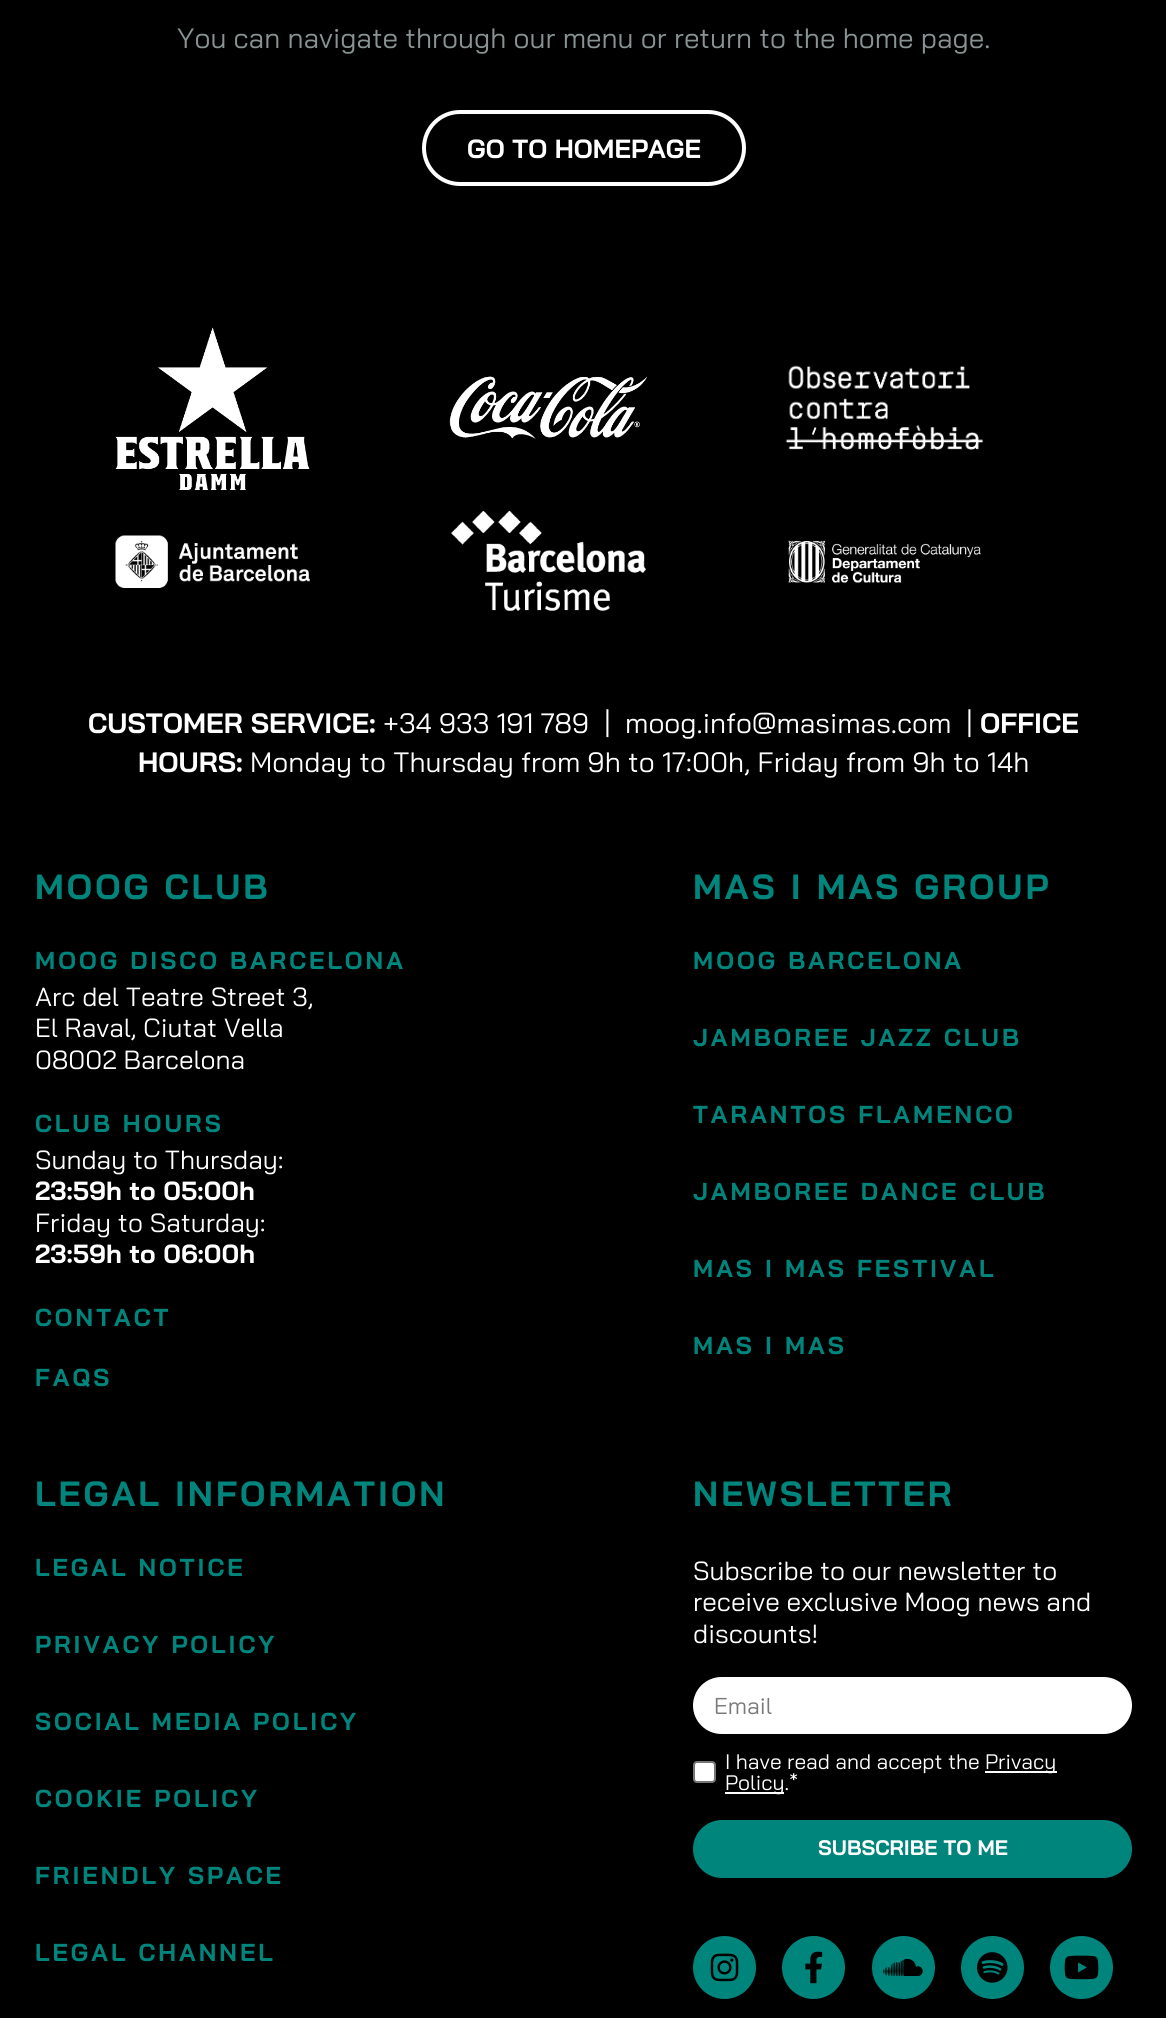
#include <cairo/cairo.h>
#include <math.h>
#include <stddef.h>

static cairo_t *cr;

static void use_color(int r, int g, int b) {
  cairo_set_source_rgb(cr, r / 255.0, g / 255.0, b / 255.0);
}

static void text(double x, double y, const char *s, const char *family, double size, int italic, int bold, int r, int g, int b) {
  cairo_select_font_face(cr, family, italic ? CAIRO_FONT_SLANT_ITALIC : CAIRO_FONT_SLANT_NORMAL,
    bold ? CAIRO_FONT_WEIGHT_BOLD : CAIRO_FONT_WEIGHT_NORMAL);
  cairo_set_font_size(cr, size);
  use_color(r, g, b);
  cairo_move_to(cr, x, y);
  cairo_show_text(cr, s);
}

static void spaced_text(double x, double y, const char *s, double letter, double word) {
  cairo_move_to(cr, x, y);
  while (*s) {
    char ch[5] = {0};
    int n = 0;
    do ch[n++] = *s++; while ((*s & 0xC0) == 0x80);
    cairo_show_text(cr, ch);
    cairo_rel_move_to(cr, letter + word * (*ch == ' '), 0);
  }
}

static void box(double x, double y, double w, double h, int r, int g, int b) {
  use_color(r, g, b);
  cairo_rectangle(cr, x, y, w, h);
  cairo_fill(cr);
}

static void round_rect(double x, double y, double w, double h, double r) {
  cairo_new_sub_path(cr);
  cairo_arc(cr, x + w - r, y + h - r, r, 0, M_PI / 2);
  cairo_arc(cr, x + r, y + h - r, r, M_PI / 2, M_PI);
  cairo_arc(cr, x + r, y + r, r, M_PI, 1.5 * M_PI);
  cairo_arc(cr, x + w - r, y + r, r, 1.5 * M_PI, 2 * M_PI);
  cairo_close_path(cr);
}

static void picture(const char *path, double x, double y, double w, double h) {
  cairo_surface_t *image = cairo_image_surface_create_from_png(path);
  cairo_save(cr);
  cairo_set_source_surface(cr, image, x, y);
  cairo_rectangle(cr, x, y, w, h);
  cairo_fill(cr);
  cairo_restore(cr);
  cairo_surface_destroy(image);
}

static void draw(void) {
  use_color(0, 0, 0);
  cairo_paint(cr);
  round_rect(424, 112, 320, 72, 36);
  use_color(255, 255, 255);
  cairo_set_line_width(cr, 4);
  cairo_stroke(cr);
  picture("img_01.png", 115, 327, 195, 163);
  picture("img_02.png", 449, 376, 199, 64);
  picture("img_03.png", 785, 365, 198, 85);
  picture("img_04.png", 115, 535, 195, 53);
  picture("img_05.png", 451, 511, 195, 100);
  picture("img_06.png", 788, 540, 193, 43);
  round_rect(693, 1677, 439, 57, 28.5);
  cairo_fill(cr);
  round_rect(694, 1762, 21, 20, 3);
  cairo_fill_preserve(cr);
  use_color(118, 118, 118);
  cairo_set_line_width(cr, 2);
  cairo_stroke(cr);
  box(985, 1771, 72, 2, 255, 255, 255);
  box(725, 1792, 59, 2, 255, 255, 255);
  use_color(0, 133, 125);
  round_rect(693, 1820, 439, 58, 29);
  cairo_fill(cr);
  cairo_arc(cr, 724.5, 1967.5, 31.5, 0, 2 * M_PI);
  cairo_fill(cr);
  picture("img_07.png", 710, 1953, 29, 29);
  cairo_arc(cr, 813.5, 1967.5, 31.5, 0, 2 * M_PI);
  cairo_fill(cr);
  picture("img_08.png", 805, 1951, 18, 33);
  cairo_arc(cr, 903.5, 1967.5, 31.5, 0, 2 * M_PI);
  cairo_fill(cr);
  picture("img_09.png", 883, 1958, 40, 18);
  cairo_arc(cr, 992.5, 1967.5, 31.5, 0, 2 * M_PI);
  cairo_fill(cr);
  picture("img_10.png", 977, 1952, 31, 31);
  cairo_arc(cr, 1081.5, 1967.5, 31.5, 0, 2 * M_PI);
  cairo_fill(cr);
  picture("img_11.png", 1064, 1955, 35, 25);
  text(177, 48, "You can navigate through our menu or return to the home page.", "Bai Jamjuree", 28, 0, 0, 138, 147, 148);
  text(467, 158, "GO TO HOMEPAGE", "Bai Jamjuree", 26.25, 0, 1, 255, 255, 255);
  text(88, 733, "CUSTOMER SERVICE:", "Bai Jamjuree", 28, 0, 1, 255, 255, 255);
  text(383, 733, "+34 933 191 789", "Bai Jamjuree", 28, 0, 0, 255, 255, 255);
  text(604, 733, "|", "Bai Jamjuree", 28, 0, 0, 255, 255, 255);
  text(625, 733, "moog.info@masimas.com", "Bai Jamjuree", 28, 0, 0, 255, 255, 255);
  text(966, 733, "|", "Bai Jamjuree", 28, 0, 0, 255, 255, 255);
  text(980, 733, "OFFICE", "Bai Jamjuree", 28, 0, 1, 255, 255, 255);
  text(138, 772, "HOURS:", "Bai Jamjuree", 28, 0, 1, 255, 255, 255);
  text(250, 772, "Monday to Thursday from 9h to 17:00h, Friday from 9h to 14h", "Bai Jamjuree", 28, 0, 0, 255, 255, 255);
  cairo_select_font_face(cr, "Bai Jamjuree", CAIRO_FONT_SLANT_NORMAL, CAIRO_FONT_WEIGHT_BOLD);
  cairo_set_font_size(cr, 35);
  use_color(0, 133, 125);
  spaced_text(35, 899, "MOOG CLUB", 3, 0);
  cairo_set_font_size(cr, 24.5);
  spaced_text(35, 969, "MOOG DISCO BARCELONA", 3, 0);
  text(35, 1006, "Arc del Teatre Street 3,", "Bai Jamjuree", 26.25, 0, 0, 255, 255, 255);
  text(35, 1037, "El Raval, Ciutat Vella", "Bai Jamjuree", 26.25, 0, 0, 255, 255, 255);
  text(35, 1069, "08002 Barcelona", "Bai Jamjuree", 26.25, 0, 0, 255, 255, 255);
  cairo_select_font_face(cr, "Bai Jamjuree", CAIRO_FONT_SLANT_NORMAL, CAIRO_FONT_WEIGHT_BOLD);
  cairo_set_font_size(cr, 24.5);
  use_color(0, 133, 125);
  spaced_text(35, 1132, "CLUB HOURS", 3, 0);
  text(35, 1169, "Sunday to Thursday:", "Bai Jamjuree", 26.25, 0, 0, 255, 255, 255);
  text(35, 1200, "23:59h to 05:00h", "Bai Jamjuree", 26.25, 0, 1, 255, 255, 255);
  text(35, 1232, "Friday to Saturday:", "Bai Jamjuree", 26.25, 0, 0, 255, 255, 255);
  text(35, 1263, "23:59h to 06:00h", "Bai Jamjuree", 26.25, 0, 1, 255, 255, 255);
  cairo_set_font_size(cr, 24.5);
  use_color(0, 133, 125);
  spaced_text(35, 1326, "CONTACT", 3, 0);
  spaced_text(35, 1386, "FAQS", 3, 0);
  cairo_set_font_size(cr, 35);
  spaced_text(693, 899, "MAS I MAS GROUP", 3, 0);
  cairo_set_font_size(cr, 24.5);
  spaced_text(693, 969, "MOOG BARCELONA", 3, 0);
  spaced_text(693, 1046, "JAMBOREE JAZZ CLUB", 3, 0);
  spaced_text(693, 1123, "TARANTOS FLAMENCO", 3, 0);
  spaced_text(693, 1200, "JAMBOREE DANCE CLUB", 3, 0);
  spaced_text(693, 1277, "MAS I MAS FESTIVAL", 3, 0);
  spaced_text(693, 1354, "MAS I MAS", 3, 0);
  cairo_set_font_size(cr, 35);
  spaced_text(35, 1506, "LEGAL INFORMATION", 3, 0);
  cairo_set_font_size(cr, 24.5);
  spaced_text(35, 1576, "LEGAL NOTICE", 3, 0);
  spaced_text(35, 1653, "PRIVACY POLICY", 3, 0);
  spaced_text(35, 1730, "SOCIAL MEDIA POLICY", 3, 0);
  spaced_text(35, 1807, "COOKIE POLICY", 3, 0);
  spaced_text(35, 1884, "FRIENDLY SPACE", 3, 0);
  spaced_text(35, 1961, "LEGAL CHANNEL", 3, 0);
  cairo_set_font_size(cr, 35);
  spaced_text(693, 1506, "NEWSLETTER", 3, 0);
  text(693, 1580, "Subscribe to our newsletter to", "Bai Jamjuree", 26.25, 0, 0, 255, 255, 255);
  text(693, 1611, "receive exclusive Moog news and", "Bai Jamjuree", 26.25, 0, 0, 255, 255, 255);
  text(693, 1643, "discounts!", "Bai Jamjuree", 26.25, 0, 0, 255, 255, 255);
  text(714, 1714, "Email", "Bai Jamjuree", 23, 0, 0, 121, 122, 124);
  text(725, 1769, "I have read and accept the", "Bai Jamjuree", 21, 0, 0, 255, 255, 255);
  text(985, 1769, "Privacy", "Bai Jamjuree", 21, 0, 0, 255, 255, 255);
  text(725, 1790, "Policy.*", "Bai Jamjuree", 21, 0, 0, 255, 255, 255);
  text(818, 1855, "SUBSCRIBE TO ME", "Bai Jamjuree", 21, 0, 1, 255, 255, 255);
}

int main(void) {
  cairo_surface_t *surface = cairo_image_surface_create(CAIRO_FORMAT_RGB24, 1166, 2018);
  cr = cairo_create(surface);
  cairo_font_options_t *options = cairo_font_options_create();
  cairo_font_options_set_hint_metrics(options, CAIRO_HINT_METRICS_OFF);
  cairo_font_options_set_hint_style(options, CAIRO_HINT_STYLE_NONE);
  cairo_set_font_options(cr, options);
  cairo_set_miter_limit(cr, 4);
  draw();
  cairo_surface_write_to_png(surface, "out.png");
  cairo_font_options_destroy(options);
  cairo_destroy(cr);
  cairo_surface_destroy(surface);
  return 0;
}
